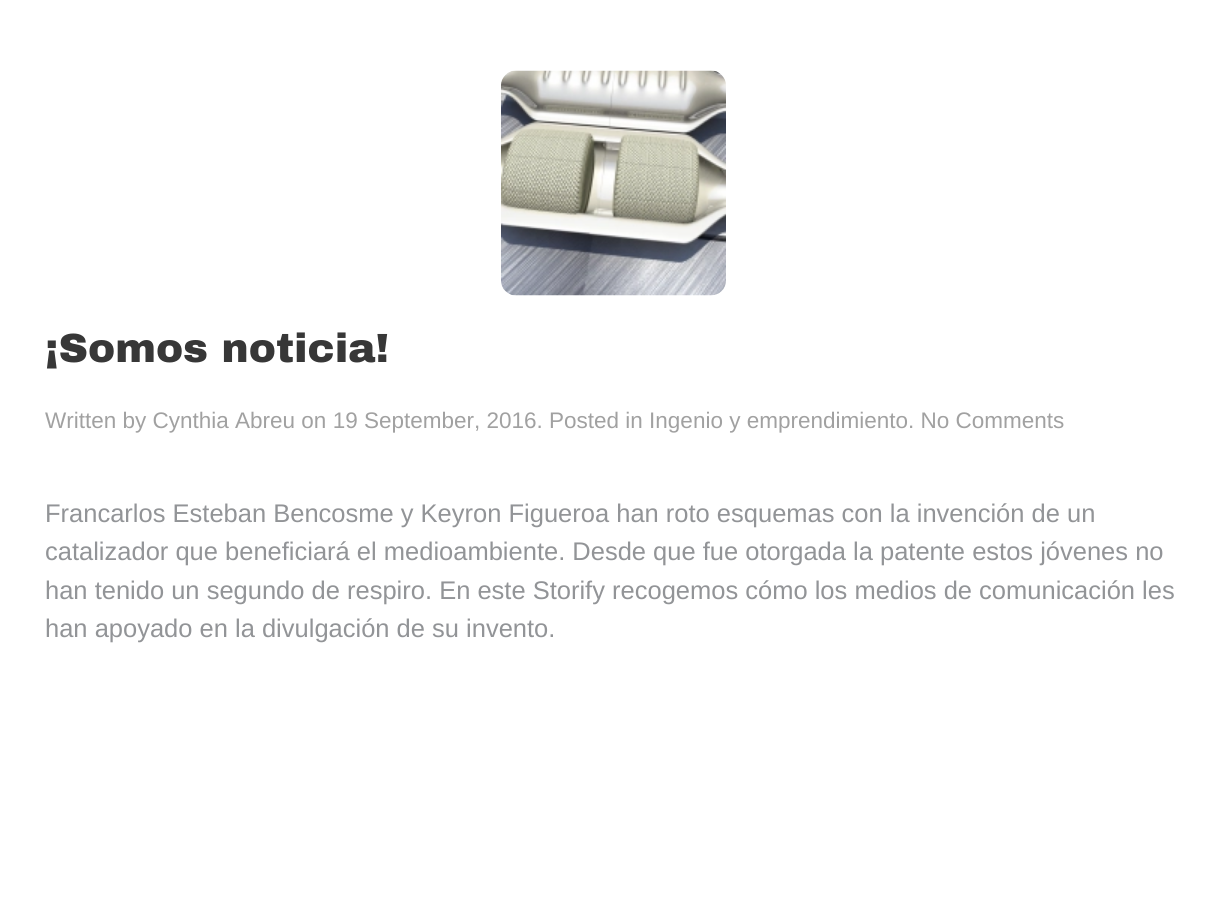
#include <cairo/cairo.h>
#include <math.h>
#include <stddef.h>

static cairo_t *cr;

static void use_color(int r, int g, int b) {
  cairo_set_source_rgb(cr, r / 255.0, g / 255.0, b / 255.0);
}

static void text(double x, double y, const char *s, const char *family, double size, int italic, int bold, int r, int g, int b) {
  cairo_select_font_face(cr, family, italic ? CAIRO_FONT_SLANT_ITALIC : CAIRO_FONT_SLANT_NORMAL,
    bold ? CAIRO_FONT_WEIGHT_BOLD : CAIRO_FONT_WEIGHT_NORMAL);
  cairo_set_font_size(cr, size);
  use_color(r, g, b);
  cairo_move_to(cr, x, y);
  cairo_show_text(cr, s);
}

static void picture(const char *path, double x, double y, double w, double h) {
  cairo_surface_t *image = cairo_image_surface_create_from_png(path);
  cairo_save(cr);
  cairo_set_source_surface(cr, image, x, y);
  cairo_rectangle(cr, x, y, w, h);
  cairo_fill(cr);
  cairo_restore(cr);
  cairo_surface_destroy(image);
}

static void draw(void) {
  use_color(255, 255, 255);
  cairo_paint(cr);
  picture("img_01.png", 501, 70, 225, 226);
  text(45, 362, "¡Somos noticia!", "Archivo Black Black", 40.75, 0, 0, 55, 55, 55);
  text(45, 428, "Written by Cynthia Abreu on 19 September, 2016. Posted in Ingenio y emprendimiento. No Comments", "Liberation Sans", 22.5, 0, 0, 161, 161, 161);
  text(45, 522, "Francarlos Esteban Bencosme y Keyron Figueroa han roto esquemas con la invención de un", "Liberation Sans", 25.5, 0, 0, 146, 148, 151);
  text(45, 560, "catalizador que beneficiará el medioambiente. Desde que fue otorgada la patente estos jóvenes no", "Liberation Sans", 25.5, 0, 0, 146, 148, 151);
  text(45, 599, "han tenido un segundo de respiro. En este Storify recogemos cómo los medios de comunicación les", "Liberation Sans", 25.5, 0, 0, 146, 148, 151);
  text(45, 637, "han apoyado en la divulgación de su invento.", "Liberation Sans", 25.5, 0, 0, 146, 148, 151);
}

int main(void) {
  cairo_surface_t *surface = cairo_image_surface_create(CAIRO_FORMAT_RGB24, 1227, 917);
  cr = cairo_create(surface);
  cairo_font_options_t *options = cairo_font_options_create();
  cairo_font_options_set_hint_metrics(options, CAIRO_HINT_METRICS_OFF);
  cairo_font_options_set_hint_style(options, CAIRO_HINT_STYLE_NONE);
  cairo_set_font_options(cr, options);
  cairo_set_miter_limit(cr, 4);
  draw();
  cairo_surface_write_to_png(surface, "out.png");
  cairo_font_options_destroy(options);
  cairo_destroy(cr);
  cairo_surface_destroy(surface);
  return 0;
}
